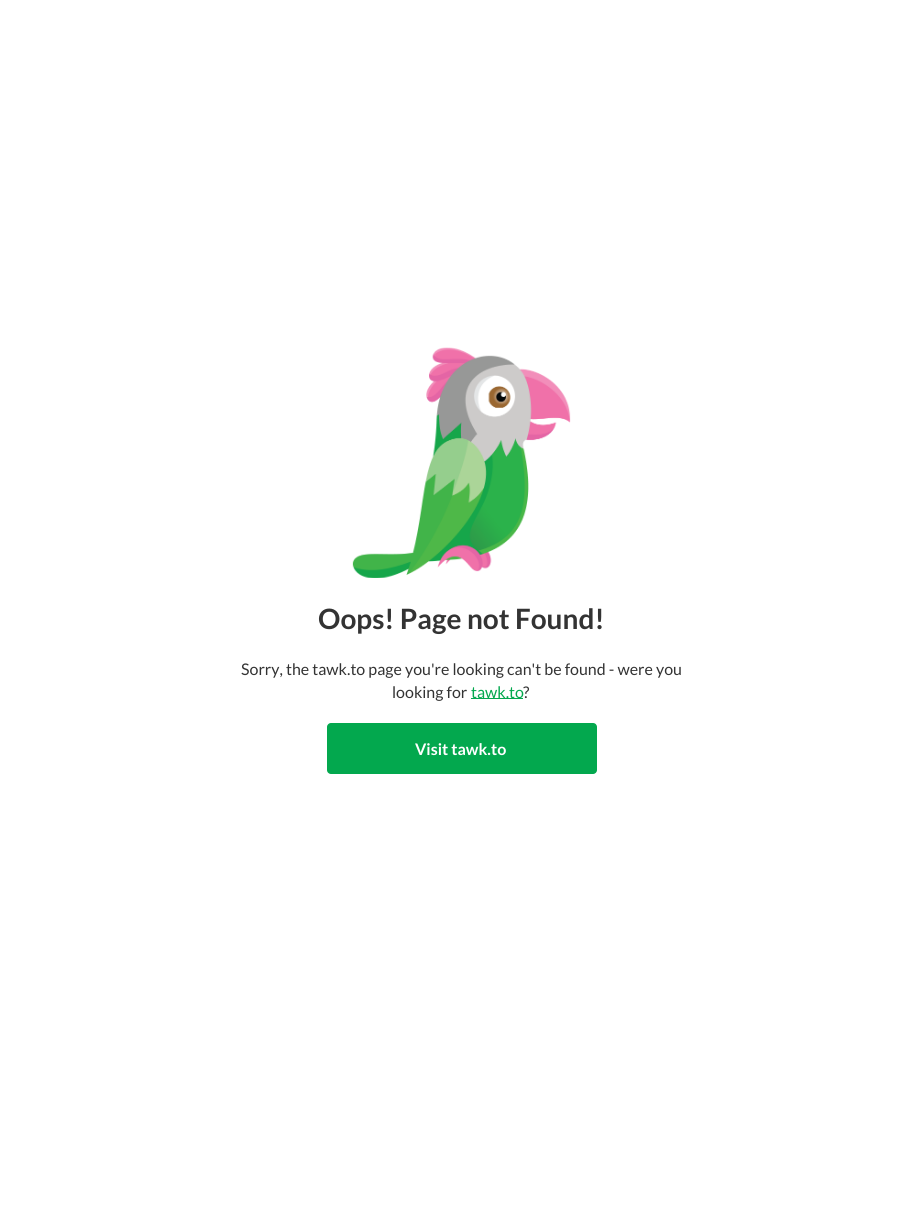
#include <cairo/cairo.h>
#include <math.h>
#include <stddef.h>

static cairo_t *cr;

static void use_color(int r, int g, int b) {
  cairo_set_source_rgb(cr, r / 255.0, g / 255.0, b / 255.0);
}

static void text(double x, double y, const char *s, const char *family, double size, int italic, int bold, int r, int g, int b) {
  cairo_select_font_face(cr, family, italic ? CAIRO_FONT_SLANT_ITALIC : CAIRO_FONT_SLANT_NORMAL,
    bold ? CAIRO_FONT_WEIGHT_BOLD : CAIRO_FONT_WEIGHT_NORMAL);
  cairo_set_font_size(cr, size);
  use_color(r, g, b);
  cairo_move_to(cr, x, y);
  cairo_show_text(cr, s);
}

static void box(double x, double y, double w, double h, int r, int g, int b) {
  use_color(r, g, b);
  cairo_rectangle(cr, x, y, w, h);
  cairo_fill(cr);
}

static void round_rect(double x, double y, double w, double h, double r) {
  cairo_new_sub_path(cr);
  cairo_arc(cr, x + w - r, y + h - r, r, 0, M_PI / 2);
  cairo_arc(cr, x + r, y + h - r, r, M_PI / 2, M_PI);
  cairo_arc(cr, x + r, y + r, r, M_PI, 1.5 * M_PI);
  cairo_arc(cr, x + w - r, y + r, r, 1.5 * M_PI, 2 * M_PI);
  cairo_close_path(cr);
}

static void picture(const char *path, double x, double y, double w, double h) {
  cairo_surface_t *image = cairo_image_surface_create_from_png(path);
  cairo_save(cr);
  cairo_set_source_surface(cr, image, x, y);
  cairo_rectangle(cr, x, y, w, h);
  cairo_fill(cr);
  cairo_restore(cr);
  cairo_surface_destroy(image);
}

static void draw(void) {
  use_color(255, 255, 255);
  cairo_paint(cr);
  picture("img_01.png", 352, 347, 219, 231);
  box(471, 698, 52, 1, 3, 168, 78);
  round_rect(327, 723, 270, 51, 4);
  cairo_fill(cr);
  text(318, 629, "Oops! Page not Found!", "Lato", 28, 0, 1, 51, 51, 51);
  text(241, 675, "Sorry, the tawk.to page you're looking can't be found - were you", "Lato", 16, 0, 0, 51, 51, 51);
  text(392, 698, "looking for", "Lato", 16, 0, 0, 51, 51, 51);
  text(471, 698, "tawk.to", "Lato", 16, 0, 0, 3, 168, 78);
  text(523, 698, "?", "Lato", 16, 0, 0, 51, 51, 51);
  text(415, 755, "Visit tawk.to", "Lato", 16, 0, 1, 255, 255, 255);
}

int main(void) {
  cairo_surface_t *surface = cairo_image_surface_create(CAIRO_FORMAT_RGB24, 922, 1222);
  cr = cairo_create(surface);
  cairo_font_options_t *options = cairo_font_options_create();
  cairo_font_options_set_hint_metrics(options, CAIRO_HINT_METRICS_OFF);
  cairo_font_options_set_hint_style(options, CAIRO_HINT_STYLE_NONE);
  cairo_set_font_options(cr, options);
  cairo_set_miter_limit(cr, 4);
  draw();
  cairo_surface_write_to_png(surface, "out.png");
  cairo_font_options_destroy(options);
  cairo_destroy(cr);
  cairo_surface_destroy(surface);
  return 0;
}
